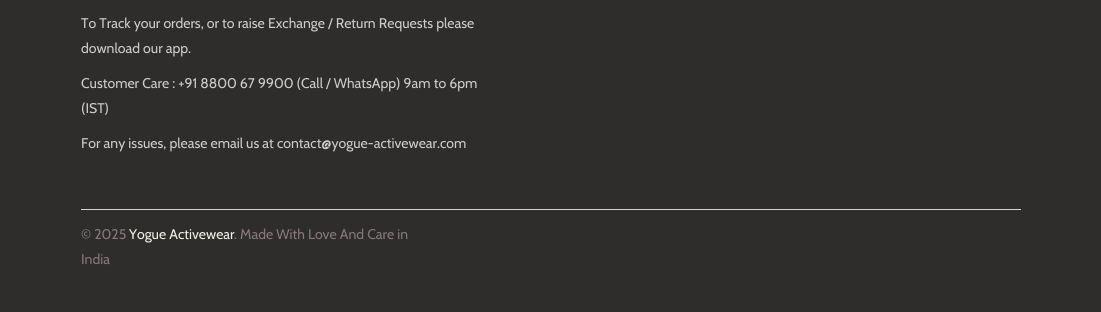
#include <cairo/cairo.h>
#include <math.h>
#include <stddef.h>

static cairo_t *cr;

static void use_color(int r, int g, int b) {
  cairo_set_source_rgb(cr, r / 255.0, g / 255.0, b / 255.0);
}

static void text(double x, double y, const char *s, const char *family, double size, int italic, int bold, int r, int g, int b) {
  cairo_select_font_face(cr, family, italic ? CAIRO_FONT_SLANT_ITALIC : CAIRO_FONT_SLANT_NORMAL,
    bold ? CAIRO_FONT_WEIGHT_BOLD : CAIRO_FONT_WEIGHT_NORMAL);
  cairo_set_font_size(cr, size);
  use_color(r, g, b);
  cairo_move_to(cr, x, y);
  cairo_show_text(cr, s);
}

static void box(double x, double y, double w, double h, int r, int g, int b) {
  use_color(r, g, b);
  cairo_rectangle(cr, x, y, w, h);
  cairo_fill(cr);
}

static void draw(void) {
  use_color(46, 45, 44);
  cairo_paint(cr);
  box(81, 209, 940, 1, 215, 212, 211);
  text(81, 28, "To Track your orders, or to raise Exchange / Return Requests please", "Cabin", 14, 0, 0, 204, 204, 204);
  text(81, 53, "download our app.", "Cabin", 14, 0, 0, 204, 204, 204);
  text(81, 88, "Customer Care : +91 8800 67 9900 (Call / WhatsApp) 9am to 6pm", "Cabin", 14, 0, 0, 204, 204, 204);
  text(81, 113, "(IST)", "Cabin", 14, 0, 0, 204, 204, 204);
  text(81, 148, "For any issues, please email us at contact@yogue-activewear.com", "Cabin", 14, 0, 0, 204, 204, 204);
  text(81, 239, "© 2025", "Cabin", 14, 0, 0, 133, 119, 119);
  text(129, 239, "Yogue Activewear", "Cabin", 14, 0, 0, 242, 237, 227);
  text(234, 239, ". Made With Love And Care in", "Cabin", 14, 0, 0, 133, 119, 119);
  text(81, 264, "India", "Cabin", 14, 0, 0, 133, 119, 119);
}

int main(void) {
  cairo_surface_t *surface = cairo_image_surface_create(CAIRO_FORMAT_RGB24, 1101, 312);
  cr = cairo_create(surface);
  cairo_font_options_t *options = cairo_font_options_create();
  cairo_font_options_set_hint_metrics(options, CAIRO_HINT_METRICS_OFF);
  cairo_font_options_set_hint_style(options, CAIRO_HINT_STYLE_NONE);
  cairo_set_font_options(cr, options);
  cairo_set_miter_limit(cr, 4);
  draw();
  cairo_surface_write_to_png(surface, "out.png");
  cairo_font_options_destroy(options);
  cairo_destroy(cr);
  cairo_surface_destroy(surface);
  return 0;
}
